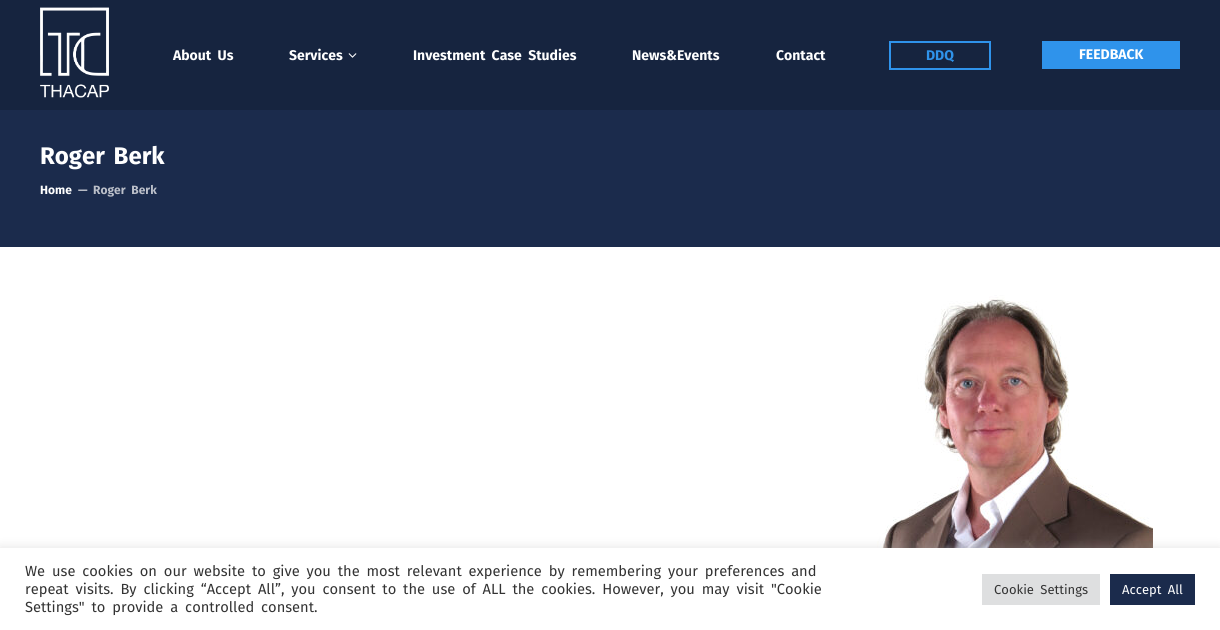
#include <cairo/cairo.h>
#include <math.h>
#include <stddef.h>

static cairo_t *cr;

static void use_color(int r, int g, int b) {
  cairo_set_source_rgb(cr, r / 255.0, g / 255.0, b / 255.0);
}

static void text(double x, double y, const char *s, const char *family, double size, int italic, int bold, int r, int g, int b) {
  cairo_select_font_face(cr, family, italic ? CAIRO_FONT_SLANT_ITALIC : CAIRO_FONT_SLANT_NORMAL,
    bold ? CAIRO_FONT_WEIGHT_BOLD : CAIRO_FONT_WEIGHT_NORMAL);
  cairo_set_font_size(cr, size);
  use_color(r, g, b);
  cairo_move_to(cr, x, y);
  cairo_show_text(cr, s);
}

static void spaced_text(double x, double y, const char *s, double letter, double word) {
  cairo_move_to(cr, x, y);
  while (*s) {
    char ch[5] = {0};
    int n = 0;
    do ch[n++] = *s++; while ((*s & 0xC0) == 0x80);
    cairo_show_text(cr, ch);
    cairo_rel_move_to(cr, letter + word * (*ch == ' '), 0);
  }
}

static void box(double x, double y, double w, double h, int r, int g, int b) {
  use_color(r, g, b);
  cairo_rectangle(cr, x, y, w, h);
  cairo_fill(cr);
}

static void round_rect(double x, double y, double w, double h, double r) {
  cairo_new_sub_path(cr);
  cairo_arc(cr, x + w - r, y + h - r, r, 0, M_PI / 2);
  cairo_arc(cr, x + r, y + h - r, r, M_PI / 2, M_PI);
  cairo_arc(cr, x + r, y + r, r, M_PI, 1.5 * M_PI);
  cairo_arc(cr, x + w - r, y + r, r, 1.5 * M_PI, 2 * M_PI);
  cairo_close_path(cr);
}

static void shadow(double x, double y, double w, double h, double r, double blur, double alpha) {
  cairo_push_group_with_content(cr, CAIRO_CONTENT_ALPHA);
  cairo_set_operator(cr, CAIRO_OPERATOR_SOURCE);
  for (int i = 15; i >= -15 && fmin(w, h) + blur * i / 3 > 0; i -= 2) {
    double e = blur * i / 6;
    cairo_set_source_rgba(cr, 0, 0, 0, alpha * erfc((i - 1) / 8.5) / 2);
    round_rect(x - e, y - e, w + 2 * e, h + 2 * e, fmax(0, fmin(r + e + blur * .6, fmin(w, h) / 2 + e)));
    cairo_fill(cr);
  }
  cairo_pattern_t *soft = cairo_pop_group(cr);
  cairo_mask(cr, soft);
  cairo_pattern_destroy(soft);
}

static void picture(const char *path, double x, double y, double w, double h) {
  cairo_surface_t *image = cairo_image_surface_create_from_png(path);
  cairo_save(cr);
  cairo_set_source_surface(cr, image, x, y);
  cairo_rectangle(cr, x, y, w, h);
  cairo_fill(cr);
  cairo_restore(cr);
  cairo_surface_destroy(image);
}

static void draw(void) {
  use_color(255, 255, 255);
  cairo_paint(cr);
  box(0, 0, 1220, 110, 22, 36, 63);
  picture("img_01.png", 40, 7, 69, 91);
  picture("img_02.png", 348, 53, 9, 5);
  cairo_rectangle(cr, 890, 42, 100, 27);
  use_color(47, 147, 235);
  cairo_stroke(cr);
  box(1042, 41, 138, 28, 47, 147, 235);
  box(0, 110, 1220, 137, 27, 43, 76);
  picture("img_03.png", 877, 295, 276, 253);
  use_color(172, 171, 171);
  shadow(0, 547, 1220, 82, 0, 5, 0.3);
  box(0, 548, 1220, 82, 255, 255, 255);
  box(982, 574, 118, 31, 222, 223, 224);
  box(1110, 574, 85, 31, 27, 43, 76);
  cairo_select_font_face(cr, "Fira Sans", CAIRO_FONT_SLANT_NORMAL, CAIRO_FONT_WEIGHT_BOLD);
  cairo_set_font_size(cr, 14);
  use_color(255, 255, 255);
  spaced_text(173, 60, "About Us", 0, 3);
  text(289, 60, "Services", "Fira Sans", 14, 0, 1, 255, 255, 255);
  spaced_text(413, 60, "Investment Case Studies", 0, 3);
  text(632, 60, "News&Events", "Fira Sans", 14, 0, 1, 255, 255, 255);
  text(776, 60, "Contact", "Fira Sans", 14, 0, 1, 255, 255, 255);
  text(926, 60, "DDQ", "Fira Sans", 14, 0, 1, 47, 147, 235);
  text(1079, 59, "FEEDBACK", "Fira Sans", 14, 0, 1, 255, 255, 255);
  cairo_set_font_size(cr, 24);
  spaced_text(40, 164, "Roger Berk", 0, 3);
  text(40, 194, "Home", "Fira Sans", 12, 0, 1, 255, 255, 255);
  text(78, 194, "—", "Fira Sans", 12, 0, 1, 187, 191, 201);
  spaced_text(93, 194, "Roger Berk", 0, 3);
  cairo_select_font_face(cr, "Fira Sans", CAIRO_FONT_SLANT_NORMAL, CAIRO_FONT_WEIGHT_NORMAL);
  cairo_set_font_size(cr, 14.67);
  use_color(51, 51, 51);
  spaced_text(25, 576, "We use cookies on our website to give you the most relevant experience by remembering your preferences and", 0, 3);
  spaced_text(25, 594, "repeat visits. By clicking “Accept All”, you consent to the use of ALL the cookies. However, you may visit \"Cookie", 0, 3);
  spaced_text(25, 612, "Settings\" to provide a controlled consent.", 0, 3);
  cairo_set_font_size(cr, 13);
  spaced_text(994, 594, "Cookie Settings", 0, 3);
  use_color(255, 255, 255);
  spaced_text(1122, 594, "Accept All", 0, 3);
}

int main(void) {
  cairo_surface_t *surface = cairo_image_surface_create(CAIRO_FORMAT_RGB24, 1220, 630);
  cr = cairo_create(surface);
  cairo_font_options_t *options = cairo_font_options_create();
  cairo_font_options_set_hint_metrics(options, CAIRO_HINT_METRICS_OFF);
  cairo_font_options_set_hint_style(options, CAIRO_HINT_STYLE_NONE);
  cairo_set_font_options(cr, options);
  cairo_set_miter_limit(cr, 4);
  draw();
  cairo_surface_write_to_png(surface, "out.png");
  cairo_font_options_destroy(options);
  cairo_destroy(cr);
  cairo_surface_destroy(surface);
  return 0;
}
